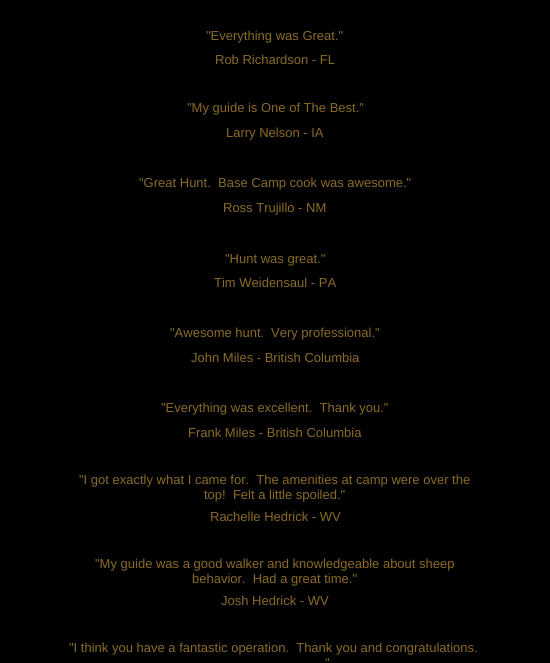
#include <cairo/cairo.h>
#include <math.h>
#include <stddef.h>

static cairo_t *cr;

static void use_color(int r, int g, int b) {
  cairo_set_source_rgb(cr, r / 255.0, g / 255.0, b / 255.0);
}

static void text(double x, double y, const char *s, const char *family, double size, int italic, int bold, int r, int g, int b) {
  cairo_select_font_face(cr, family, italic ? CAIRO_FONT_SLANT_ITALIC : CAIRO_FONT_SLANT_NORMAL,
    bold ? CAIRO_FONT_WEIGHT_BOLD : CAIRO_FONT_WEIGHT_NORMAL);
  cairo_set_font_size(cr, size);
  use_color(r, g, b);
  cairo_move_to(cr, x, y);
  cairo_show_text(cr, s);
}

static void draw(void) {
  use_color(0, 0, 0);
  cairo_paint(cr);
  text(206, 40, "\"Everything was Great.\"", "Liberation Sans", 13, 0, 0, 138, 106, 40);
  text(215, 64, "Rob Richardson - FL", "Liberation Sans", 13, 0, 0, 138, 106, 40);
  text(187, 112, "\"My guide is One of The Best.\"", "Liberation Sans", 13, 0, 0, 138, 106, 40);
  text(226, 137, "Larry Nelson - IA", "Liberation Sans", 13, 0, 0, 138, 106, 40);
  text(139, 187, "\"Great Hunt.  Base Camp cook was awesome.\"", "Liberation Sans", 13, 0, 0, 138, 106, 40);
  text(223, 212, "Ross Trujillo - NM", "Liberation Sans", 13, 0, 0, 138, 106, 40);
  text(225, 263, "\"Hunt was great.\"", "Liberation Sans", 13, 0, 0, 138, 106, 40);
  text(214, 287, "Tim Weidensaul - PA", "Liberation Sans", 13, 0, 0, 138, 106, 40);
  text(170, 337, "\"Awesome hunt.", "Liberation Sans", 13, 0, 0, 138, 106, 40);
  text(271, 337, "Very professional.\"", "Liberation Sans", 13, 0, 0, 138, 106, 40);
  text(191, 362, "John Miles - British Columbia", "Liberation Sans", 13, 0, 0, 138, 106, 40);
  text(161, 412, "\"Everything was excellent.  Thank you.\"", "Liberation Sans", 13, 0, 0, 138, 106, 40);
  text(188, 437, "Frank Miles - British Columbia", "Liberation Sans", 13, 0, 0, 138, 106, 40);
  text(79, 484, "\"I got exactly what I came for.  The amenities at camp were over the", "Liberation Sans", 13, 0, 0, 138, 106, 40);
  text(204, 499, "top!  Felt a little spoiled.\"", "Liberation Sans", 13, 0, 0, 138, 106, 40);
  text(210, 521, "Rachelle Hedrick - WV", "Liberation Sans", 13, 0, 0, 138, 106, 40);
  text(95, 568, "\"My guide was a good walker and knowledgeable about sheep", "Liberation Sans", 13, 0, 0, 138, 106, 40);
  text(192, 583, "behavior.  Had a great time.\"", "Liberation Sans", 13, 0, 0, 138, 106, 40);
  text(221, 605, "Josh Hedrick - WV", "Liberation Sans", 13, 0, 0, 138, 106, 40);
  text(69, 652, "\"I think you have a fantastic operation.  Thank you and congratulations.", "Liberation Sans", 13, 0, 0, 138, 106, 40);
  text(325, 667, "\"", "Liberation Sans", 13, 0, 0, 138, 106, 40);
}

int main(void) {
  cairo_surface_t *surface = cairo_image_surface_create(CAIRO_FORMAT_RGB24, 550, 663);
  cr = cairo_create(surface);
  cairo_font_options_t *options = cairo_font_options_create();
  cairo_font_options_set_hint_metrics(options, CAIRO_HINT_METRICS_OFF);
  cairo_font_options_set_hint_style(options, CAIRO_HINT_STYLE_NONE);
  cairo_set_font_options(cr, options);
  cairo_set_miter_limit(cr, 4);
  draw();
  cairo_surface_write_to_png(surface, "out.png");
  cairo_font_options_destroy(options);
  cairo_destroy(cr);
  cairo_surface_destroy(surface);
  return 0;
}
